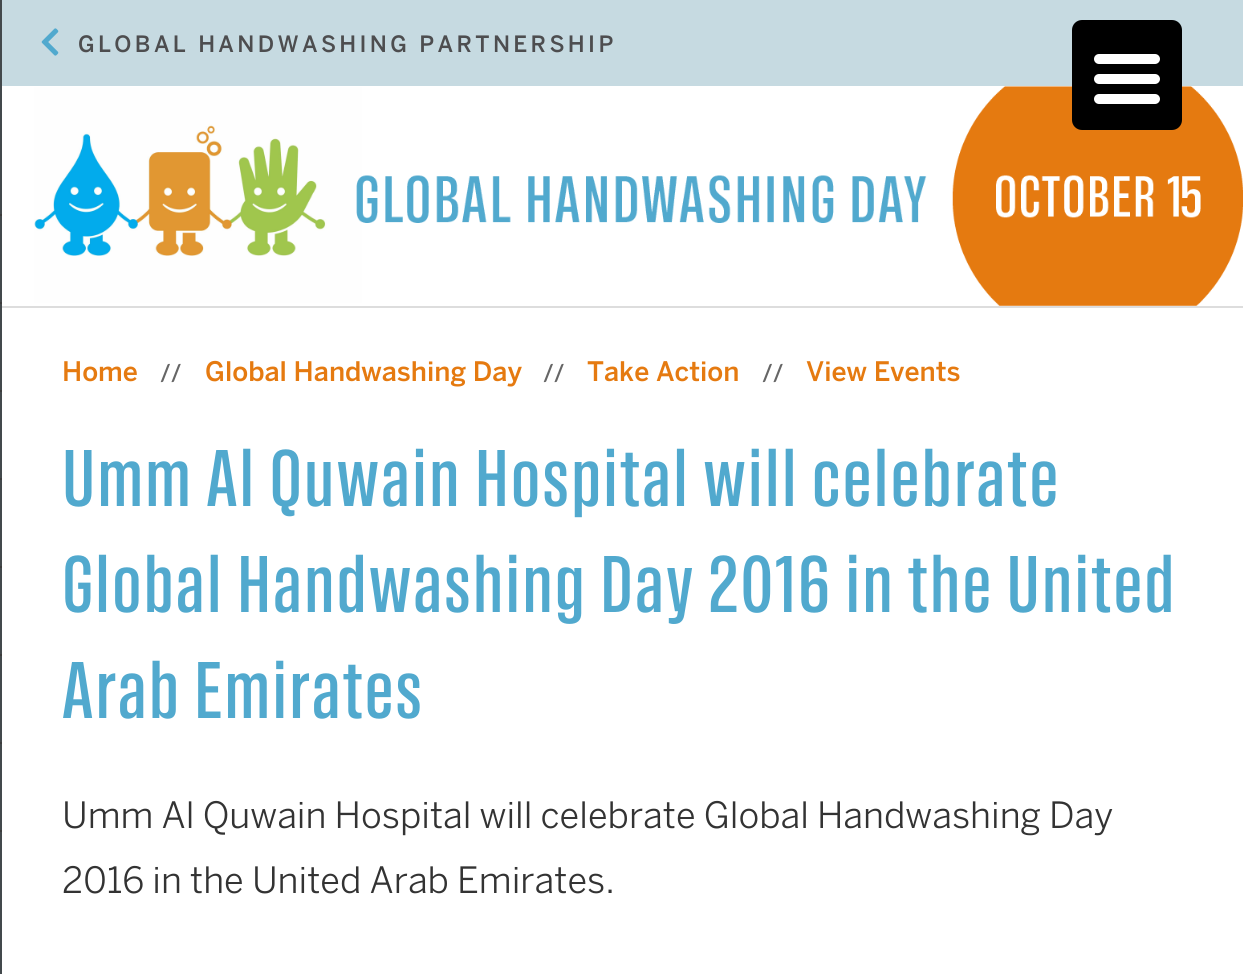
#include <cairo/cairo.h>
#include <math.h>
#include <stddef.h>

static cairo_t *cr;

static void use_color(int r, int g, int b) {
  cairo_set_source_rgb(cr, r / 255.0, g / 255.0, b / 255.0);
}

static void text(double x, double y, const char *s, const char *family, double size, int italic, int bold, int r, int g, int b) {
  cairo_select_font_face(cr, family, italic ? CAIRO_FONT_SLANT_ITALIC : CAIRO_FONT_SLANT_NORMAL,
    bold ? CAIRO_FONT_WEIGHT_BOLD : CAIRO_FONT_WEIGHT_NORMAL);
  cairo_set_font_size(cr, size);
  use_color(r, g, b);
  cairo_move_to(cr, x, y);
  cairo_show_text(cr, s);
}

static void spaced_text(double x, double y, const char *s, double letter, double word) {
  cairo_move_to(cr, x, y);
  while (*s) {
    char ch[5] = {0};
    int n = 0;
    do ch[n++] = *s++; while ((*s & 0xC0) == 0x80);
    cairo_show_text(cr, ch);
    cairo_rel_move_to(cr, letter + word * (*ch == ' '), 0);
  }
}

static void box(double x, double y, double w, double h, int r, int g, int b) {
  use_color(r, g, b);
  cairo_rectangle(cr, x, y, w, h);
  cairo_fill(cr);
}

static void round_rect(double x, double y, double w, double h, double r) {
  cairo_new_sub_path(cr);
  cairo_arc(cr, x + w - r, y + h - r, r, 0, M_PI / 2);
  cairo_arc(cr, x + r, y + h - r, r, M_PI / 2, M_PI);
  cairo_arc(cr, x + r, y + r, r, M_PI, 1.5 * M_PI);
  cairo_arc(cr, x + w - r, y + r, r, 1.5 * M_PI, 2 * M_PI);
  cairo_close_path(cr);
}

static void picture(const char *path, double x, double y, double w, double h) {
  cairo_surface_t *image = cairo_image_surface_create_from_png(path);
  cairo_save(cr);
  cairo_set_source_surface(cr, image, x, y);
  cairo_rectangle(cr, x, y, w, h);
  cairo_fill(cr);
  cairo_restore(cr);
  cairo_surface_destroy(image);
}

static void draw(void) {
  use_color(255, 255, 255);
  cairo_paint(cr);
  box(0, 306, 1243, 2, 221, 221, 221);
  box(0, 0, 2, 974, 67, 73, 76);
  box(0, 214, 2, 2, 60, 60, 60);
  box(0, 302, 2, 2, 60, 60, 60);
  box(0, 390, 2, 2, 60, 60, 60);
  box(0, 478, 2, 2, 60, 60, 60);
  box(0, 566, 2, 2, 60, 60, 60);
  box(0, 654, 2, 2, 60, 60, 60);
  box(0, 742, 2, 2, 60, 60, 60);
  box(0, 830, 2, 2, 60, 60, 60);
  box(2, 0, 1241, 86, 198, 218, 225);
  picture("img_01.png", 41, 28, 18, 28);
  picture("img_02.png", 34, 86, 1209, 220);
  use_color(0, 0, 0);
  round_rect(1072, 20, 110, 110, 10);
  cairo_fill(cr);
  use_color(255, 255, 255);
  round_rect(1094, 74, 66, 10, 5);
  cairo_fill(cr);
  round_rect(1094, 54, 66, 10, 5);
  cairo_fill(cr);
  round_rect(1094, 94, 66, 10, 5);
  cairo_fill(cr);
  cairo_select_font_face(cr, "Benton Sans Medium", CAIRO_FONT_SLANT_NORMAL, CAIRO_FONT_WEIGHT_NORMAL);
  cairo_set_font_size(cr, 22.4);
  use_color(77, 77, 79);
  spaced_text(78, 52, "GLOBAL HANDWASHING PARTNERSHIP", 3.35, 0);
  text(62, 381, "Home", "Benton Sans Medium", 26.75, 0, 0, 229, 122, 16);
  text(160, 381, "//", "Lato", 23, 0, 1, 102, 102, 102);
  text(205, 381, "Global Handwashing Day", "Benton Sans Medium", 26.75, 0, 0, 229, 122, 16);
  text(543, 381, "//", "Lato", 23, 0, 1, 102, 102, 102);
  text(587, 381, "Take Action", "Benton Sans Medium", 26.75, 0, 0, 229, 122, 16);
  text(762, 381, "//", "Lato", 23, 0, 1, 102, 102, 102);
  text(806, 381, "View Events", "Benton Sans Medium", 26.75, 0, 0, 229, 122, 16);
  cairo_select_font_face(cr, "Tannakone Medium", CAIRO_FONT_SLANT_NORMAL, CAIRO_FONT_WEIGHT_NORMAL);
  cairo_set_font_size(cr, 80);
  use_color(81, 169, 206);
  spaced_text(62, 506, "Umm Al Quwain Hospital will celebrate", 2, 0);
  spaced_text(62, 612, "Global Handwashing Day 2016 in the United", 2, 0);
  spaced_text(62, 718, "Arab Emirates", 2, 0);
  text(62, 828, "Umm Al Quwain Hospital will celebrate Global Handwashing Day", "Benton Sans", 36, 0, 0, 51, 51, 51);
  text(62, 893, "2016 in the United Arab Emirates.", "Benton Sans", 36, 0, 0, 51, 51, 51);
}

int main(void) {
  cairo_surface_t *surface = cairo_image_surface_create(CAIRO_FORMAT_RGB24, 1243, 974);
  cr = cairo_create(surface);
  cairo_font_options_t *options = cairo_font_options_create();
  cairo_font_options_set_hint_metrics(options, CAIRO_HINT_METRICS_OFF);
  cairo_font_options_set_hint_style(options, CAIRO_HINT_STYLE_NONE);
  cairo_set_font_options(cr, options);
  cairo_set_miter_limit(cr, 4);
  draw();
  cairo_surface_write_to_png(surface, "out.png");
  cairo_font_options_destroy(options);
  cairo_destroy(cr);
  cairo_surface_destroy(surface);
  return 0;
}
